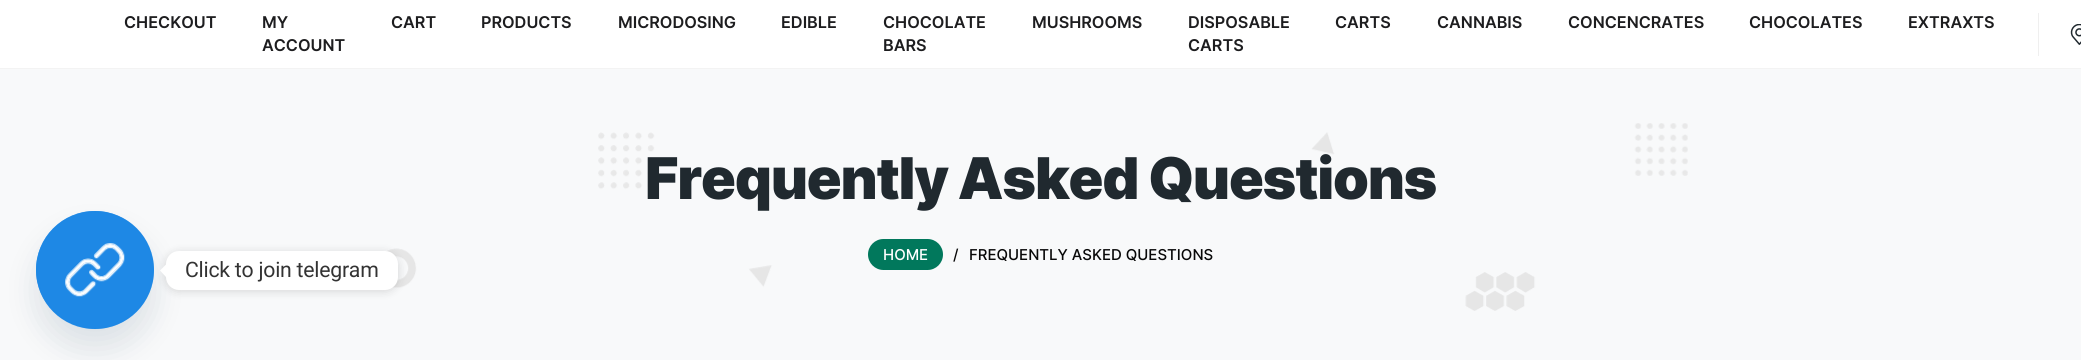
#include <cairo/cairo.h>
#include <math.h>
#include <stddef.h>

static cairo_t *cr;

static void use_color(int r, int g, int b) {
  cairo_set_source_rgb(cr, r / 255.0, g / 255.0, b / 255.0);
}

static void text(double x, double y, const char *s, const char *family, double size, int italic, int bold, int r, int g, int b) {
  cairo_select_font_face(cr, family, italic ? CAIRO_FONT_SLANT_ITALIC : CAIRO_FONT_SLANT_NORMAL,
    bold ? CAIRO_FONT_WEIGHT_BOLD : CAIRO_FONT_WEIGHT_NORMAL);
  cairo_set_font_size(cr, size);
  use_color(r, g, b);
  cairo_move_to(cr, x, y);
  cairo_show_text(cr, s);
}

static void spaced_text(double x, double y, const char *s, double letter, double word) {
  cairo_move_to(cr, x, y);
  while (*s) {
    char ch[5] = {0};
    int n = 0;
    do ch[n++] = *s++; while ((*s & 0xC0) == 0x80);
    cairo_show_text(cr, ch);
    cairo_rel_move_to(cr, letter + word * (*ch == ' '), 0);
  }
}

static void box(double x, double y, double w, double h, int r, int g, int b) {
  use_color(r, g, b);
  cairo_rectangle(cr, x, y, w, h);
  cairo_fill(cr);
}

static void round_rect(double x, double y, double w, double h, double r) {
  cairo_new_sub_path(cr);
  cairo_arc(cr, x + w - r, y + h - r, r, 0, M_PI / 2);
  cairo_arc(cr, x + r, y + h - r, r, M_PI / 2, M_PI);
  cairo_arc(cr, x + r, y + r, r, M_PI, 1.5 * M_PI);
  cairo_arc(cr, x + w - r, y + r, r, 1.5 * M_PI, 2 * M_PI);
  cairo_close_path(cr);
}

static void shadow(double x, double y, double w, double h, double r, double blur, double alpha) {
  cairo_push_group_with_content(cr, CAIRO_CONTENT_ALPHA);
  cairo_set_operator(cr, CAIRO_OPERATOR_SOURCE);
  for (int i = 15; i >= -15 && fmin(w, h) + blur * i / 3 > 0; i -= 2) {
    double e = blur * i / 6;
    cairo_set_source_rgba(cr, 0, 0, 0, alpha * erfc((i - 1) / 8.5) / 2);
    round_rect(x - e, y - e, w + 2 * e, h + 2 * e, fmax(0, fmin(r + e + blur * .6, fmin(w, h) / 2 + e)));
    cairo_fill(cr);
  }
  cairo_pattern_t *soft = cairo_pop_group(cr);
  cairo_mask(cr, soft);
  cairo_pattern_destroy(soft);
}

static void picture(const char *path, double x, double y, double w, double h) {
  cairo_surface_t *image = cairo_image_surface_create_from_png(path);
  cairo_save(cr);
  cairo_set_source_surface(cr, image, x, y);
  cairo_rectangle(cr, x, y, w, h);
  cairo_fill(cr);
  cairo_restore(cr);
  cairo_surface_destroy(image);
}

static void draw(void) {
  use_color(255, 255, 255);
  cairo_paint(cr);
  box(0, 68, 2081, 1, 243, 243, 243);
  box(2038, 13, 1, 43, 239, 239, 239);
  picture("img_01.png", 2070, 24, 11, 21);
  box(0, 69, 2081, 291, 248, 249, 250);
  picture("img_02.png", 385, 123, 1303, 188);
  use_color(1, 120, 92);
  round_rect(868, 239, 75, 31, 15.5);
  cairo_fill(cr);
  use_color(73, 104, 126);
  shadow(36, 231, 118, 118, 59, 15, 0.16);
  use_color(30, 136, 229);
  cairo_arc(cr, 95, 270, 59, 0, 2 * M_PI);
  cairo_fill(cr);
  picture("img_03.png", 36, 211, 118, 119);
  use_color(0, 0, 0);
  shadow(166, 253, 232, 38, 13, 5, 0.15);
  use_color(255, 255, 255);
  round_rect(166, 251, 232, 39, 13);
  cairo_fill(cr);
  cairo_new_path(cr);
  cairo_move_to(cr, 166, 264.5);
  cairo_line_to(cr, 166, 277);
  cairo_line_to(cr, 160, 270.5);
  cairo_close_path(cr);
  cairo_fill(cr);
  text(124, 28, "CHECKOUT", "Inter SemiBold", 16.25, 0, 0, 29, 29, 31);
  text(262, 28, "MY", "Inter SemiBold", 16.25, 0, 0, 29, 29, 31);
  text(262, 51, "ACCOUNT", "Inter SemiBold", 16.25, 0, 0, 29, 29, 31);
  text(391, 28, "CART", "Inter SemiBold", 16.25, 0, 0, 29, 29, 31);
  text(481, 28, "PRODUCTS", "Inter SemiBold", 16.25, 0, 0, 29, 29, 31);
  text(618, 28, "MICRODOSING", "Inter SemiBold", 16.25, 0, 0, 29, 29, 31);
  text(781, 28, "EDIBLE", "Inter SemiBold", 16.25, 0, 0, 29, 29, 31);
  text(883, 28, "CHOCOLATE", "Inter SemiBold", 16.25, 0, 0, 29, 29, 31);
  text(883, 51, "BARS", "Inter SemiBold", 16.25, 0, 0, 29, 29, 31);
  text(1032, 28, "MUSHROOMS", "Inter SemiBold", 16.25, 0, 0, 29, 29, 31);
  text(1188, 28, "DISPOSABLE", "Inter SemiBold", 16.25, 0, 0, 29, 29, 31);
  text(1188, 51, "CARTS", "Inter SemiBold", 16.25, 0, 0, 29, 29, 31);
  text(1335, 28, "CARTS", "Inter SemiBold", 16.25, 0, 0, 29, 29, 31);
  text(1437, 28, "CANNABIS", "Inter SemiBold", 16.25, 0, 0, 29, 29, 31);
  text(1568, 28, "CONCENCRATES", "Inter SemiBold", 16.25, 0, 0, 29, 29, 31);
  text(1749, 28, "CHOCOLATES", "Inter SemiBold", 16.25, 0, 0, 29, 29, 31);
  text(1908, 28, "EXTRAXTS", "Inter SemiBold", 16.25, 0, 0, 29, 29, 31);
  cairo_select_font_face(cr, "Inter Black", CAIRO_FONT_SLANT_NORMAL, CAIRO_FONT_WEIGHT_NORMAL);
  cairo_set_font_size(cr, 57.5);
  use_color(32, 41, 47);
  spaced_text(645, 199, "Frequently Asked Questions", -1.25, 0);
  text(883, 260, "HOME", "Inter Medium", 15, 0, 0, 255, 255, 255);
  text(953, 260, "/", "Inter Medium", 15, 0, 0, 8, 8, 8);
  text(969, 260, "FREQUENTLY ASKED QUESTIONS", "Inter Medium", 15, 0, 0, 8, 8, 8);
  cairo_select_font_face(cr, "Roboto", CAIRO_FONT_SLANT_NORMAL, CAIRO_FONT_WEIGHT_NORMAL);
  cairo_set_font_size(cr, 21.25);
  use_color(51, 51, 51);
  spaced_text(185, 277, "Click to join telegram", -0.25, 0);
}

int main(void) {
  cairo_surface_t *surface = cairo_image_surface_create(CAIRO_FORMAT_RGB24, 2081, 360);
  cr = cairo_create(surface);
  cairo_font_options_t *options = cairo_font_options_create();
  cairo_font_options_set_hint_metrics(options, CAIRO_HINT_METRICS_OFF);
  cairo_font_options_set_hint_style(options, CAIRO_HINT_STYLE_NONE);
  cairo_set_font_options(cr, options);
  cairo_set_miter_limit(cr, 4);
  draw();
  cairo_surface_write_to_png(surface, "out.png");
  cairo_font_options_destroy(options);
  cairo_destroy(cr);
  cairo_surface_destroy(surface);
  return 0;
}
